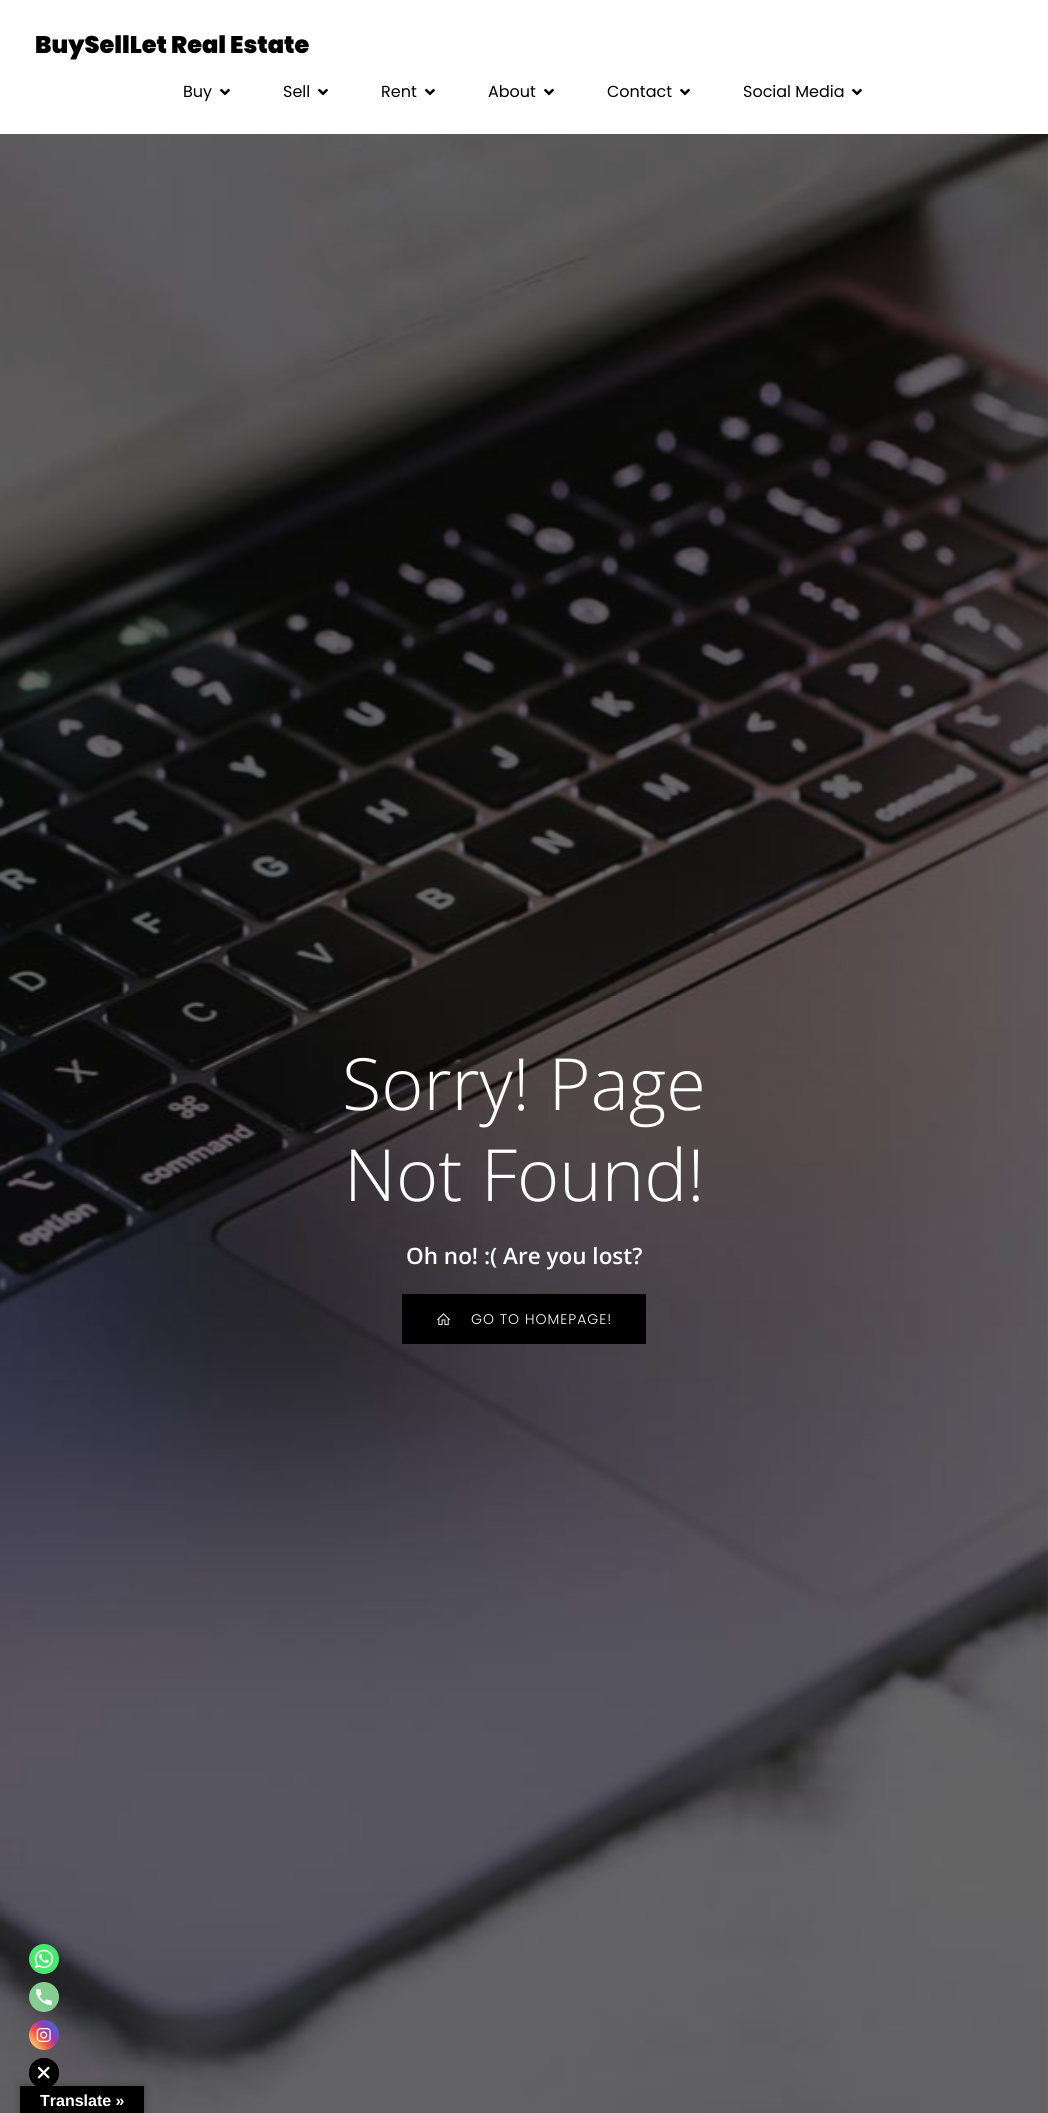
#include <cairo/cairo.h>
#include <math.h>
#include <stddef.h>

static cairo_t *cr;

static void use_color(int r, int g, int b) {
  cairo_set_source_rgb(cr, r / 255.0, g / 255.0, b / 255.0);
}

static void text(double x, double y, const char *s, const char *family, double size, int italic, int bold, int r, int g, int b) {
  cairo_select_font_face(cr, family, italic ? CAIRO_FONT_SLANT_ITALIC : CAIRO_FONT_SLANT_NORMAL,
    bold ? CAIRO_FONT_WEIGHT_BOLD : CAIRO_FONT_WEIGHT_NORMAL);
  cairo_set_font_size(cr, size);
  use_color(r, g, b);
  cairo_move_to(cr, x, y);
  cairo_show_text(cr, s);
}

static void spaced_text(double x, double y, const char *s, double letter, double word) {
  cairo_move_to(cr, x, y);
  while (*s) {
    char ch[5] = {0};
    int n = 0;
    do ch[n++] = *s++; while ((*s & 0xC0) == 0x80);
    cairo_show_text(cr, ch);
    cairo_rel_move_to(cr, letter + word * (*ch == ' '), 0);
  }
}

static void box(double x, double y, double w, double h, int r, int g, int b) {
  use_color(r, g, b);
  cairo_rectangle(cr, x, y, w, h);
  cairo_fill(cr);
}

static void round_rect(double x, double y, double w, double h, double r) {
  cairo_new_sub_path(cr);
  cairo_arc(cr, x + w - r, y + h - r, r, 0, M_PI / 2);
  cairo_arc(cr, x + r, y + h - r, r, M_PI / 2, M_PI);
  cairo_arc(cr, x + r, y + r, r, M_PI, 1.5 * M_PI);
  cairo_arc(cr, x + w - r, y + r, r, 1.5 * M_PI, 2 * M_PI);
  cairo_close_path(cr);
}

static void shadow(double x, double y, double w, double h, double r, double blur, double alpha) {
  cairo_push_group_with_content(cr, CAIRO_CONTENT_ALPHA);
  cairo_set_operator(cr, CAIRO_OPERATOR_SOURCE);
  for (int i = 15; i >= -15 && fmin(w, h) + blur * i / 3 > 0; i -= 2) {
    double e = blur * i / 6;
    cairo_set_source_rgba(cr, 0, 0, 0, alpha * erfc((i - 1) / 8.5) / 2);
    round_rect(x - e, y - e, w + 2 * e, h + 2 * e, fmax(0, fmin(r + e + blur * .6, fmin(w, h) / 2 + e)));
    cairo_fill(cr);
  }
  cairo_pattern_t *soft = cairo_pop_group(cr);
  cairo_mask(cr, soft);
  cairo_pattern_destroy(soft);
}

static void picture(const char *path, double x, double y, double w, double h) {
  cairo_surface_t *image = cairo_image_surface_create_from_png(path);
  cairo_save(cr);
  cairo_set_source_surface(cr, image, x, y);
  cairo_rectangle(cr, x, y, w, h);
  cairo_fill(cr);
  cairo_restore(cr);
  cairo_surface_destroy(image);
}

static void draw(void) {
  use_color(255, 255, 255);
  cairo_paint(cr);
  picture("img_01.png", 220, 88, 10, 8);
  picture("img_01.png", 318, 88, 10, 8);
  picture("img_01.png", 425, 88, 10, 8);
  picture("img_01.png", 544, 88, 10, 8);
  picture("img_01.png", 680, 88, 10, 8);
  picture("img_01.png", 852, 88, 10, 8);
  picture("img_02.png", 0, 134, 1048, 1979);
  box(402, 1294, 244, 50, 0, 0, 0);
  picture("img_03.png", 437, 1313, 13, 13);
  picture("img_04.png", 29, 1944, 30, 30);
  picture("img_05.png", 29, 1982, 30, 30);
  picture("img_06.png", 29, 2020, 30, 30);
  cairo_new_path(cr);
  cairo_move_to(cr, 44, 2088);
  cairo_curve_to(cr, 35.5, 2088, 29, 2081.5, 29, 2073);
  cairo_curve_to(cr, 29, 2064.5, 35.5, 2058, 44, 2058);
  cairo_curve_to(cr, 52.5, 2058, 59, 2064.5, 59, 2073);
  cairo_curve_to(cr, 59, 2081.5, 52.5, 2088, 44, 2088);
  cairo_close_path(cr);
  cairo_fill(cr);
  picture("img_07.png", 29, 2058, 30, 28);
  use_color(0, 0, 0);
  shadow(20, 2086, 124, 27, 0, 4.5, 0.3);
  box(20, 2086, 124, 27, 0, 0, 0);
  text(35, 53, "BuySellLet Real Estate", "Poppins Black", 24, 0, 0, 0, 0, 0);
  text(183, 97, "Buy", "Poppins", 16, 0, 0, 0, 0, 0);
  text(283, 97, "Sell", "Poppins", 16, 0, 0, 0, 0, 0);
  text(381, 97, "Rent", "Poppins", 16, 0, 0, 0, 0, 0);
  text(488, 97, "About", "Poppins", 16, 0, 0, 0, 0, 0);
  text(607, 97, "Contact", "Poppins", 16, 0, 0, 0, 0, 0);
  text(743, 97, "Social Media", "Poppins", 16, 0, 0, 0, 0, 0);
  text(342, 1110, "Sorry! Page", "Open Sans Light", 72, 0, 0, 255, 255, 255);
  text(344, 1201, "Not Found!", "Open Sans Light", 72, 0, 0, 255, 255, 255);
  text(406, 1264, "Oh no! :( Are you lost?", "Open Sans SemiBold", 22.5, 0, 0, 255, 255, 255);
  cairo_select_font_face(cr, "Poppins Light", CAIRO_FONT_SLANT_NORMAL, CAIRO_FONT_WEIGHT_NORMAL);
  cairo_set_font_size(cr, 14);
  spaced_text(471, 1324, "GO TO HOMEPAGE!", 1, 0);
  text(40, 2106, "Translate »", "Liberation Sans", 16, 0, 1, 255, 255, 255);
}

int main(void) {
  cairo_surface_t *surface = cairo_image_surface_create(CAIRO_FORMAT_RGB24, 1048, 2113);
  cr = cairo_create(surface);
  cairo_font_options_t *options = cairo_font_options_create();
  cairo_font_options_set_hint_metrics(options, CAIRO_HINT_METRICS_OFF);
  cairo_font_options_set_hint_style(options, CAIRO_HINT_STYLE_NONE);
  cairo_set_font_options(cr, options);
  cairo_set_miter_limit(cr, 4);
  draw();
  cairo_surface_write_to_png(surface, "out.png");
  cairo_font_options_destroy(options);
  cairo_destroy(cr);
  cairo_surface_destroy(surface);
  return 0;
}
